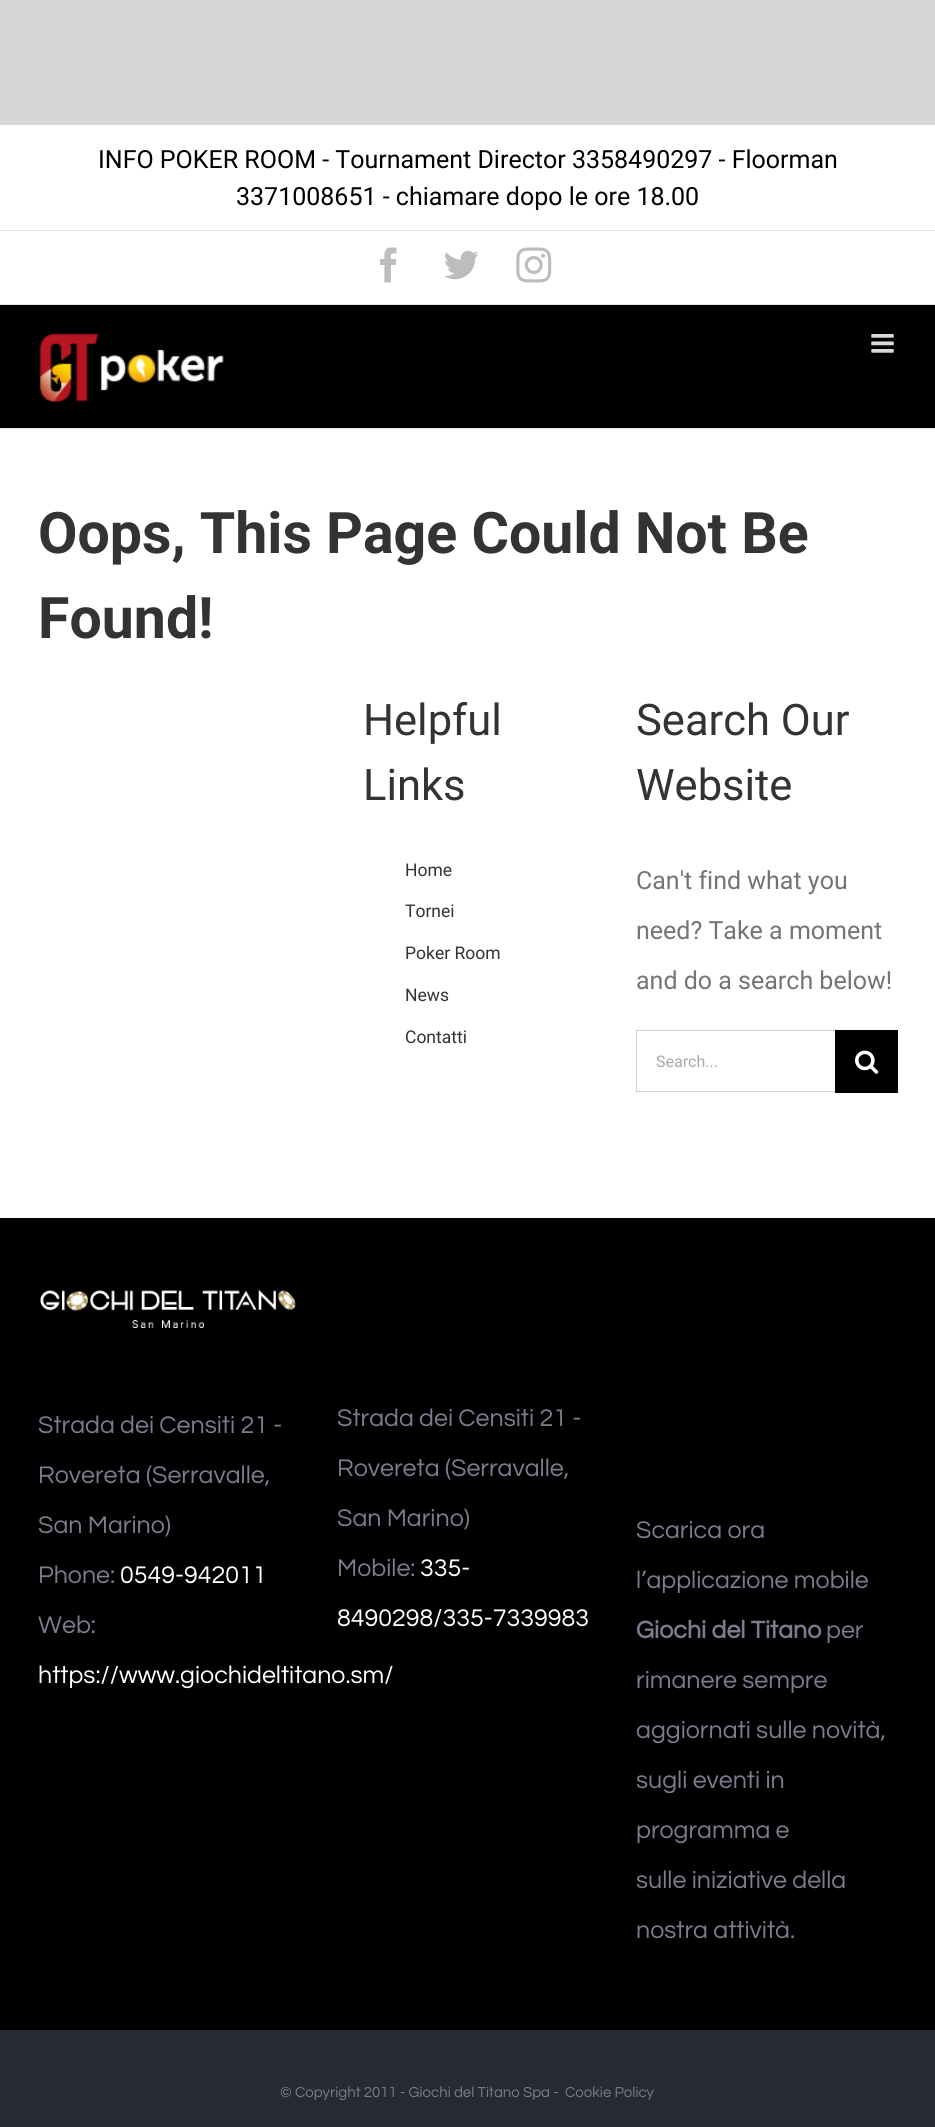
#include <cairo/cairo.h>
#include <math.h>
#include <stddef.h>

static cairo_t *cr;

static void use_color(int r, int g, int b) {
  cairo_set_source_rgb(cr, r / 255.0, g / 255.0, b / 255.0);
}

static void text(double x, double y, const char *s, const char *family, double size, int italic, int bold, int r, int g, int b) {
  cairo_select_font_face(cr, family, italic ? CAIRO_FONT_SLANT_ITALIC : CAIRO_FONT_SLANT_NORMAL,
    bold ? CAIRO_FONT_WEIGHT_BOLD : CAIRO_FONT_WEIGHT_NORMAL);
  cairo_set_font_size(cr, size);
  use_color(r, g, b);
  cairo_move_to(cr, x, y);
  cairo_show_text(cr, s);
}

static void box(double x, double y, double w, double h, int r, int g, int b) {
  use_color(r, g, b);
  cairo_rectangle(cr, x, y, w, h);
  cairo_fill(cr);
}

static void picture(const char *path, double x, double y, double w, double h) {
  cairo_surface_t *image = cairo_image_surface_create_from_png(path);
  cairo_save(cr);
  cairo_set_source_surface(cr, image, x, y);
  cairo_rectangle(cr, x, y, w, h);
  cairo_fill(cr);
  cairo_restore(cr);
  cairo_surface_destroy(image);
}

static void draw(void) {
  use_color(215, 214, 214);
  cairo_paint(cr);
  box(0, 125, 935, 179, 255, 255, 255);
  box(0, 304, 935, 1, 229, 229, 229);
  box(0, 230, 935, 1, 229, 229, 229);
  picture("img_01.png", 380, 247, 17, 36);
  picture("img_02.png", 444, 250, 35, 30);
  picture("img_03.png", 516, 247, 36, 36);
  box(0, 305, 935, 123, 0, 0, 0);
  box(0, 428, 935, 1, 229, 229, 229);
  picture("img_04.png", 39, 333, 185, 70);
  picture("img_05.png", 871, 334, 23, 19);
  box(0, 429, 935, 789, 255, 255, 255);
  box(636, 1030, 199, 1, 210, 210, 210);
  box(636, 1091, 199, 1, 210, 210, 210);
  box(636, 1030, 1, 63, 210, 210, 210);
  box(835, 1030, 63, 63, 0, 0, 0);
  picture("img_06.png", 855, 1050, 24, 24);
  box(0, 1218, 935, 812, 0, 0, 0);
  picture("img_07.png", 40, 1289, 256, 39);
  box(0, 2030, 935, 97, 37, 42, 51);
  text(98, 168, "INFO POKER ROOM - Tournament Director 3358490297 - Floorman", "Roboto", 25, 0, 0, 0, 0, 0);
  text(236, 205, "3371008651 - chiamare dopo le ore 18.00", "Roboto", 25, 0, 0, 0, 0, 0);
  text(38, 553, "Oops, This Page Could Not Be", "Roboto", 57.25, 0, 1, 51, 51, 51);
  text(38, 638, "Found!", "Roboto", 57.25, 0, 1, 51, 51, 51);
  text(363, 735, "Helpful", "Roboto", 43.5, 0, 0, 51, 51, 51);
  text(363, 800, "Links", "Roboto", 43.5, 0, 0, 51, 51, 51);
  text(405, 876, "Home", "Roboto", 17.5, 0, 0, 51, 51, 51);
  text(405, 917, "Tornei", "Roboto", 17.5, 0, 0, 51, 51, 51);
  text(405, 959, "Poker Room", "Roboto", 17.5, 0, 0, 51, 51, 51);
  text(405, 1001, "News", "Roboto", 17.5, 0, 0, 51, 51, 51);
  text(405, 1043, "Contatti", "Roboto", 17.5, 0, 0, 51, 51, 51);
  text(636, 735, "Search Our", "Roboto", 43.5, 0, 0, 51, 51, 51);
  text(636, 800, "Website", "Roboto", 43.5, 0, 0, 51, 51, 51);
  text(636, 889, "Can't find what you", "Roboto", 25, 0, 0, 116, 116, 116);
  text(636, 939, "need? Take a moment", "Roboto", 25, 0, 0, 116, 116, 116);
  text(636, 989, "and do a search below!", "Roboto", 25, 0, 0, 116, 116, 116);
  text(656, 1067, "Search...", "Roboto", 16, 0, 0, 170, 169, 169);
  text(38, 1433, "Strada dei Censiti 21 -", "Questrial", 25, 0, 0, 125, 123, 141);
  text(38, 1483, "Rovereta (Serravalle,", "Questrial", 25, 0, 0, 125, 123, 141);
  text(38, 1533, "San Marino)", "Questrial", 25, 0, 0, 125, 123, 141);
  text(38, 1583, "Phone:", "Questrial", 25, 0, 0, 125, 123, 141);
  text(120, 1583, "0549-942011", "Questrial", 25, 0, 0, 255, 255, 255);
  text(38, 1633, "Web:", "Questrial", 25, 0, 0, 125, 123, 141);
  text(38, 1683, "https://www.giochideltitano.sm/", "Questrial", 25, 0, 0, 255, 255, 255);
  text(337, 1426, "Strada dei Censiti 21 -", "Questrial", 25, 0, 0, 125, 123, 141);
  text(337, 1476, "Rovereta (Serravalle,", "Questrial", 25, 0, 0, 125, 123, 141);
  text(337, 1526, "San Marino)", "Questrial", 25, 0, 0, 125, 123, 141);
  text(337, 1576, "Mobile:", "Questrial", 25, 0, 0, 125, 123, 141);
  text(420, 1576, "335-", "Questrial", 25, 0, 0, 255, 255, 255);
  text(337, 1626, "8490298/335-7339983", "Questrial", 25, 0, 0, 255, 255, 255);
  text(636, 1538, "Scarica ora", "Questrial", 25, 0, 0, 125, 123, 141);
  text(636, 1588, "l’applicazione mobile", "Questrial", 25, 0, 0, 125, 123, 141);
  text(636, 1638, "Giochi del Titano", "Questrial", 25, 0, 1, 125, 123, 141);
  text(826, 1638, "per", "Questrial", 25, 0, 0, 125, 123, 141);
  text(636, 1688, "rimanere sempre", "Questrial", 25, 0, 0, 125, 123, 141);
  text(636, 1738, "aggiornati sulle novità,", "Questrial", 25, 0, 0, 125, 123, 141);
  text(636, 1788, "sugli eventi in", "Questrial", 25, 0, 0, 125, 123, 141);
  text(636, 1838, "programma e", "Questrial", 25, 0, 0, 125, 123, 141);
  text(636, 1888, "sulle iniziative della", "Questrial", 25, 0, 0, 125, 123, 141);
  text(636, 1938, "nostra attività.", "Questrial", 25, 0, 0, 125, 123, 141);
  text(280, 2097, "© Copyright 2011 - Giochi del Titano Spa -", "Questrial", 15, 0, 0, 125, 123, 141);
  text(565, 2097, "Cookie Policy", "Questrial", 15, 0, 0, 125, 123, 141);
}

int main(void) {
  cairo_surface_t *surface = cairo_image_surface_create(CAIRO_FORMAT_RGB24, 935, 2127);
  cr = cairo_create(surface);
  cairo_font_options_t *options = cairo_font_options_create();
  cairo_font_options_set_hint_metrics(options, CAIRO_HINT_METRICS_OFF);
  cairo_font_options_set_hint_style(options, CAIRO_HINT_STYLE_NONE);
  cairo_set_font_options(cr, options);
  cairo_set_miter_limit(cr, 4);
  draw();
  cairo_surface_write_to_png(surface, "out.png");
  cairo_font_options_destroy(options);
  cairo_destroy(cr);
  cairo_surface_destroy(surface);
  return 0;
}
